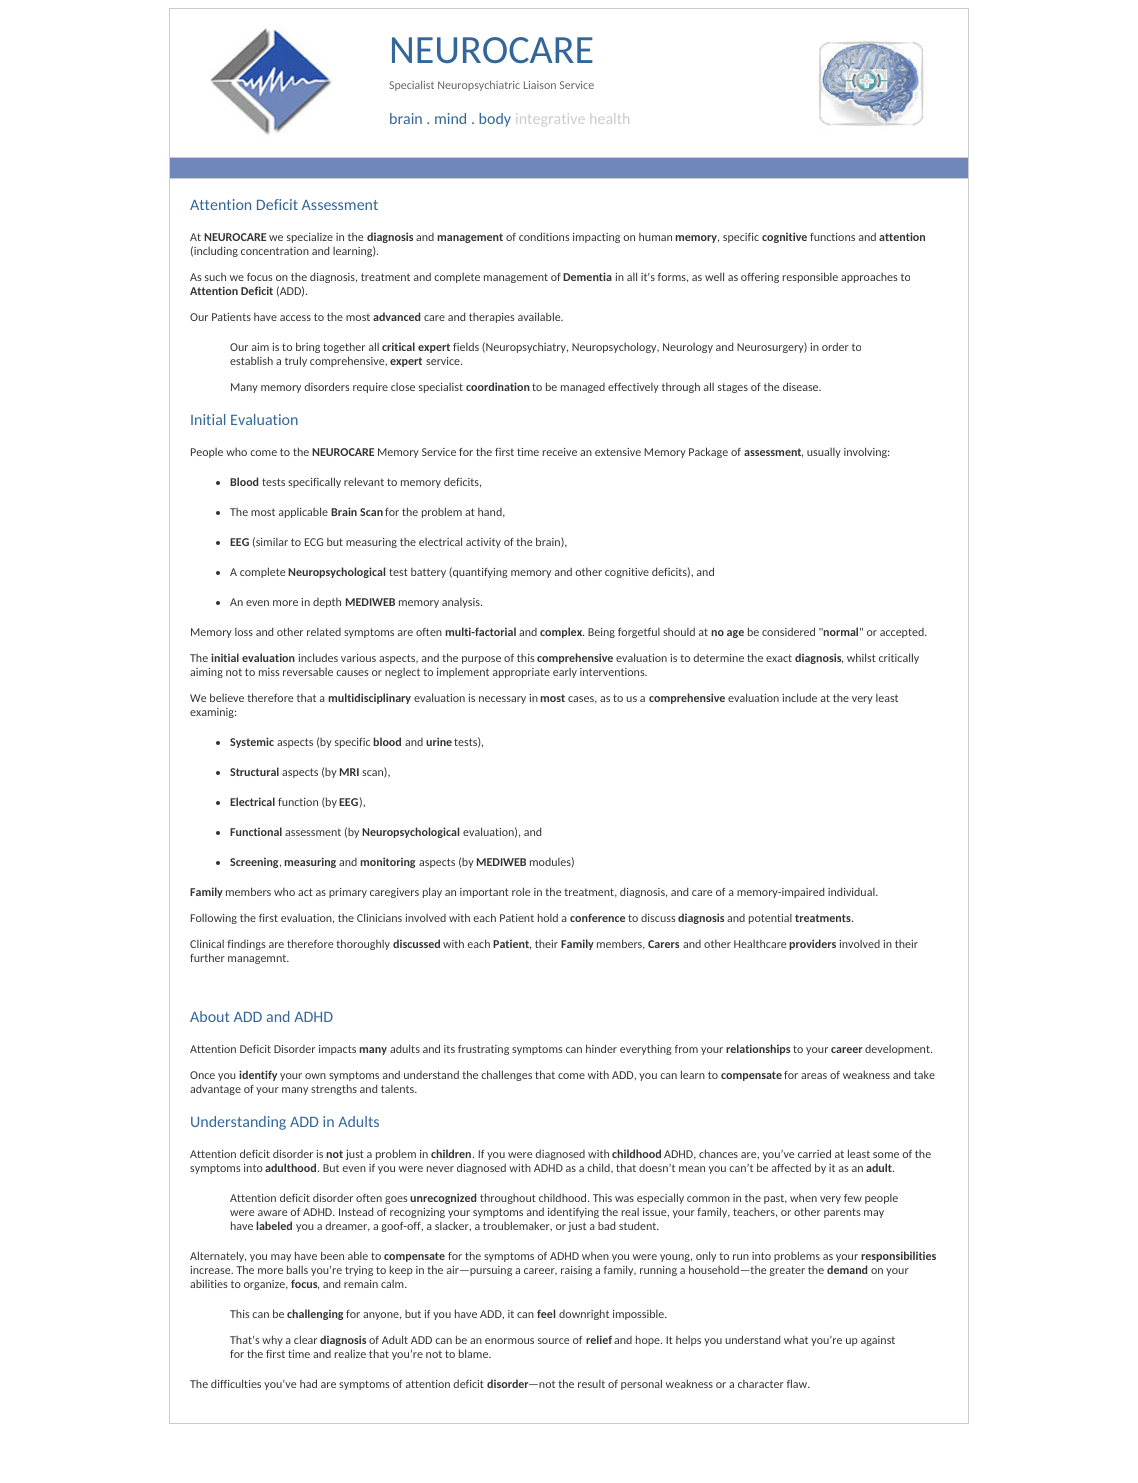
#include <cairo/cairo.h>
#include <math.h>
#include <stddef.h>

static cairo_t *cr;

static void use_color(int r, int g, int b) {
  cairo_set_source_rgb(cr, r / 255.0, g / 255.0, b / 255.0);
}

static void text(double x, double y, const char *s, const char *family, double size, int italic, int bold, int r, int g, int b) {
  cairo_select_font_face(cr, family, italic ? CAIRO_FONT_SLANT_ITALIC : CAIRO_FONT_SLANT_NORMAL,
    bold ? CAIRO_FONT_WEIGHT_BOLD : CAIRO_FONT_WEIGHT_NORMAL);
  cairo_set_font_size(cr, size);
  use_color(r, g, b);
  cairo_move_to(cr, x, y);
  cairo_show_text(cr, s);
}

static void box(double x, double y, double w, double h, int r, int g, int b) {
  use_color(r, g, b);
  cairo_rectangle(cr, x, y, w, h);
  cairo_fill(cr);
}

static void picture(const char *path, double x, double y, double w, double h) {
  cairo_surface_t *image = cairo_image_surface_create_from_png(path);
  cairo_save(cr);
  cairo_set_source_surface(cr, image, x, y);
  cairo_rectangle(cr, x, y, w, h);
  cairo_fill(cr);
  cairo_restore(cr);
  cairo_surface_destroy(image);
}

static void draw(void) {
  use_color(255, 255, 255);
  cairo_paint(cr);
  picture("img_01.png", 208, 28, 128, 110);
  box(169, 8, 800, 1, 204, 204, 204);
  box(169, 157, 600, 1, 204, 204, 204);
  box(169, 8, 1, 150, 204, 204, 204);
  picture("img_02.png", 817, 41, 111, 88);
  box(968, 8, 1, 150, 204, 204, 204);
  box(769, 157, 200, 1, 204, 204, 204);
  cairo_rectangle(cr, 169.5, 158.5, 799, 1265);
  cairo_set_line_width(cr, 1);
  cairo_stroke(cr);
  box(170, 158, 798, 20, 112, 135, 187);
  box(169, 178, 800, 1, 204, 204, 204);
  use_color(51, 51, 51);
  cairo_arc(cr, 218, 483, 2, 0, 2 * M_PI);
  cairo_fill(cr);
  cairo_arc(cr, 218, 513, 2, 0, 2 * M_PI);
  cairo_fill(cr);
  cairo_arc(cr, 218, 543, 2, 0, 2 * M_PI);
  cairo_fill(cr);
  cairo_arc(cr, 218, 573, 2, 0, 2 * M_PI);
  cairo_fill(cr);
  cairo_arc(cr, 218, 603, 2, 0, 2 * M_PI);
  cairo_fill(cr);
  cairo_arc(cr, 218, 743, 2, 0, 2 * M_PI);
  cairo_fill(cr);
  cairo_arc(cr, 218, 773, 2, 0, 2 * M_PI);
  cairo_fill(cr);
  cairo_arc(cr, 218, 803, 2, 0, 2 * M_PI);
  cairo_fill(cr);
  cairo_arc(cr, 218, 833, 2, 0, 2 * M_PI);
  cairo_fill(cr);
  cairo_arc(cr, 218, 863, 2, 0, 2 * M_PI);
  cairo_fill(cr);
  text(389, 63, "NEUROCARE", "Carlito", 40, 0, 0, 51, 102, 153);
  text(389, 89, "Specialist Neuropsychiatric Liaison Service", "Carlito", 12, 0, 0, 102, 102, 102);
  text(389, 124, "brain . mind . body", "Carlito", 16, 0, 0, 51, 102, 153);
  text(515, 124, "integrative health", "Carlito", 16, 0, 0, 204, 204, 204);
  text(190, 210, "Attention Deficit Assessment", "Carlito", 16, 0, 0, 51, 102, 153);
  text(190, 241, "At", "Carlito", 12, 0, 0, 51, 51, 51);
  text(204, 241, "NEUROCARE", "Carlito", 12, 0, 1, 51, 51, 51);
  text(269, 241, "we specialize in the", "Carlito", 12, 0, 0, 51, 51, 51);
  text(367, 241, "diagnosis", "Carlito", 12, 0, 1, 51, 51, 51);
  text(416, 241, "and", "Carlito", 12, 0, 0, 51, 51, 51);
  text(437, 241, "management", "Carlito", 12, 0, 1, 51, 51, 51);
  text(506, 241, "of conditions impacting on human", "Carlito", 12, 0, 0, 51, 51, 51);
  text(675, 241, "memory", "Carlito", 12, 0, 1, 51, 51, 51);
  text(717, 241, ", specific", "Carlito", 12, 0, 0, 51, 51, 51);
  text(762, 241, "cognitive", "Carlito", 12, 0, 1, 51, 51, 51);
  text(810, 241, "functions and", "Carlito", 12, 0, 0, 51, 51, 51);
  text(879, 241, "attention", "Carlito", 12, 0, 1, 51, 51, 51);
  text(190, 255, "(including concentration and learning).", "Carlito", 12, 0, 0, 51, 51, 51);
  text(190, 281, "As such we focus on the diagnosis, treatment and complete management of", "Carlito", 12, 0, 0, 51, 51, 51);
  text(563, 281, "Dementia", "Carlito", 12, 0, 1, 51, 51, 51);
  text(615, 281, "in all it's forms, as well as offering responsible approaches to", "Carlito", 12, 0, 0, 51, 51, 51);
  text(190, 295, "Attention Deficit", "Carlito", 12, 0, 1, 51, 51, 51);
  text(276, 295, "(ADD).", "Carlito", 12, 0, 0, 51, 51, 51);
  text(190, 321, "Our Patients have access to the most", "Carlito", 12, 0, 0, 51, 51, 51);
  text(373, 321, "advanced", "Carlito", 12, 0, 1, 51, 51, 51);
  text(424, 321, "care and therapies available.", "Carlito", 12, 0, 0, 51, 51, 51);
  text(230, 351, "Our aim is to bring together all", "Carlito", 12, 0, 0, 51, 51, 51);
  text(382, 351, "critical expert", "Carlito", 12, 0, 1, 51, 51, 51);
  text(453, 351, "fields (Neuropsychiatry, Neuropsychology, Neurology and Neurosurgery) in order to", "Carlito", 12, 0, 0, 51, 51, 51);
  text(230, 365, "establish a truly comprehensive,", "Carlito", 12, 0, 0, 51, 51, 51);
  text(390, 365, "expert", "Carlito", 12, 0, 1, 51, 51, 51);
  text(426, 365, "service.", "Carlito", 12, 0, 0, 51, 51, 51);
  text(230, 391, "Many memory disorders require close specialist", "Carlito", 12, 0, 0, 51, 51, 51);
  text(466, 391, "coordination", "Carlito", 12, 0, 1, 51, 51, 51);
  text(532, 391, "to be managed effectively through all stages of the disease.", "Carlito", 12, 0, 0, 51, 51, 51);
  text(190, 425, "Initial Evaluation", "Carlito", 16, 0, 0, 51, 102, 153);
  text(190, 456, "People who come to the", "Carlito", 12, 0, 0, 51, 51, 51);
  text(312, 456, "NEUROCARE", "Carlito", 12, 0, 1, 51, 51, 51);
  text(377, 456, "Memory Service for the first time receive an extensive Memory Package of", "Carlito", 12, 0, 0, 51, 51, 51);
  text(744, 456, "assessment", "Carlito", 12, 0, 1, 51, 51, 51);
  text(801, 456, ", usually involving:", "Carlito", 12, 0, 0, 51, 51, 51);
  text(230, 486, "Blood", "Carlito", 12, 0, 1, 51, 51, 51);
  text(262, 486, "tests specifically relevant to memory deficits,", "Carlito", 12, 0, 0, 51, 51, 51);
  text(230, 516, "The most applicable", "Carlito", 12, 0, 0, 51, 51, 51);
  text(331, 516, "Brain Scan", "Carlito", 12, 0, 1, 51, 51, 51);
  text(385, 516, "for the problem at hand,", "Carlito", 12, 0, 0, 51, 51, 51);
  text(230, 546, "EEG", "Carlito", 12, 0, 1, 51, 51, 51);
  text(252, 546, "(similar to ECG but measuring the electrical activity of the brain),", "Carlito", 12, 0, 0, 51, 51, 51);
  text(230, 576, "A complete", "Carlito", 12, 0, 0, 51, 51, 51);
  text(288, 576, "Neuropsychological", "Carlito", 12, 0, 1, 51, 51, 51);
  text(389, 576, "test battery (quantifying memory and other cognitive deficits), and", "Carlito", 12, 0, 0, 51, 51, 51);
  text(230, 606, "An even more in depth", "Carlito", 12, 0, 0, 51, 51, 51);
  text(345, 606, "MEDIWEB", "Carlito", 12, 0, 1, 51, 51, 51);
  text(398, 606, "memory analysis.", "Carlito", 12, 0, 0, 51, 51, 51);
  text(190, 636, "Memory loss and other related symptoms are often", "Carlito", 12, 0, 0, 51, 51, 51);
  text(445, 636, "multi-factorial", "Carlito", 12, 0, 1, 51, 51, 51);
  text(519, 636, "and", "Carlito", 12, 0, 0, 51, 51, 51);
  text(540, 636, "complex", "Carlito", 12, 0, 1, 51, 51, 51);
  text(582, 636, ". Being forgetful should at", "Carlito", 12, 0, 0, 51, 51, 51);
  text(711, 636, "no age", "Carlito", 12, 0, 1, 51, 51, 51);
  text(747, 636, "be considered \"", "Carlito", 12, 0, 0, 51, 51, 51);
  text(823, 636, "normal", "Carlito", 12, 0, 1, 51, 51, 51);
  text(859, 636, "\" or accepted.", "Carlito", 12, 0, 0, 51, 51, 51);
  text(190, 662, "The", "Carlito", 12, 0, 0, 51, 51, 51);
  text(211, 662, "initial evaluation", "Carlito", 12, 0, 1, 51, 51, 51);
  text(298, 662, "includes various aspects, and the purpose of this", "Carlito", 12, 0, 0, 51, 51, 51);
  text(537, 662, "comprehensive", "Carlito", 12, 0, 1, 51, 51, 51);
  text(616, 662, "evaluation is to determine the exact", "Carlito", 12, 0, 0, 51, 51, 51);
  text(795, 662, "diagnosis", "Carlito", 12, 0, 1, 51, 51, 51);
  text(841, 662, ", whilst critically", "Carlito", 12, 0, 0, 51, 51, 51);
  text(190, 676, "aiming not to miss reversable causes or neglect to implement appropriate early interventions.", "Carlito", 12, 0, 0, 51, 51, 51);
  text(190, 702, "We believe therefore that a", "Carlito", 12, 0, 0, 51, 51, 51);
  text(328, 702, "multidisciplinary", "Carlito", 12, 0, 1, 51, 51, 51);
  text(414, 702, "evaluation is necessary in", "Carlito", 12, 0, 0, 51, 51, 51);
  text(540, 702, "most", "Carlito", 12, 0, 1, 51, 51, 51);
  text(568, 702, "cases, as to us a", "Carlito", 12, 0, 0, 51, 51, 51);
  text(649, 702, "comprehensive", "Carlito", 12, 0, 1, 51, 51, 51);
  text(728, 702, "evaluation include at the very least", "Carlito", 12, 0, 0, 51, 51, 51);
  text(190, 716, "examinig:", "Carlito", 12, 0, 0, 51, 51, 51);
  text(230, 746, "Systemic", "Carlito", 12, 0, 1, 51, 51, 51);
  text(277, 746, "aspects (by specific", "Carlito", 12, 0, 0, 51, 51, 51);
  text(373, 746, "blood", "Carlito", 12, 0, 1, 51, 51, 51);
  text(405, 746, "and", "Carlito", 12, 0, 0, 51, 51, 51);
  text(426, 746, "urine", "Carlito", 12, 0, 1, 51, 51, 51);
  text(454, 746, "tests),", "Carlito", 12, 0, 0, 51, 51, 51);
  text(230, 776, "Structural", "Carlito", 12, 0, 1, 51, 51, 51);
  text(282, 776, "aspects (by", "Carlito", 12, 0, 0, 51, 51, 51);
  text(339, 776, "MRI", "Carlito", 12, 0, 1, 51, 51, 51);
  text(362, 776, "scan),", "Carlito", 12, 0, 0, 51, 51, 51);
  text(230, 806, "Electrical", "Carlito", 12, 0, 1, 51, 51, 51);
  text(278, 806, "function (by", "Carlito", 12, 0, 0, 51, 51, 51);
  text(339, 806, "EEG", "Carlito", 12, 0, 1, 51, 51, 51);
  text(359, 806, "),", "Carlito", 12, 0, 0, 51, 51, 51);
  text(230, 836, "Functional", "Carlito", 12, 0, 1, 51, 51, 51);
  text(285, 836, "assessment (by", "Carlito", 12, 0, 0, 51, 51, 51);
  text(362, 836, "Neuropsychological", "Carlito", 12, 0, 1, 51, 51, 51);
  text(463, 836, "evaluation), and", "Carlito", 12, 0, 0, 51, 51, 51);
  text(230, 866, "Screening", "Carlito", 12, 0, 1, 51, 51, 51);
  text(284, 866, "measuring", "Carlito", 12, 0, 1, 51, 51, 51);
  text(339, 866, "and", "Carlito", 12, 0, 0, 51, 51, 51);
  text(360, 866, "monitoring", "Carlito", 12, 0, 1, 51, 51, 51);
  text(419, 866, "aspects (by", "Carlito", 12, 0, 0, 51, 51, 51);
  text(476, 866, "MEDIWEB", "Carlito", 12, 0, 1, 51, 51, 51);
  text(529, 866, "modules)", "Carlito", 12, 0, 0, 51, 51, 51);
  text(279, 866, ",", "Carlito", 12, 0, 0, 51, 51, 51);
  text(190, 896, "Family", "Carlito", 12, 0, 1, 51, 51, 51);
  text(225, 896, "members who act as primary caregivers play an important role in the treatment, diagnosis, and care of a memory-impaired individual.", "Carlito", 12, 0, 0, 51, 51, 51);
  text(190, 922, "Following the first evaluation, the Clinicians involved with each Patient hold a", "Carlito", 12, 0, 0, 51, 51, 51);
  text(570, 922, "conference", "Carlito", 12, 0, 1, 51, 51, 51);
  text(628, 922, "to discuss", "Carlito", 12, 0, 0, 51, 51, 51);
  text(678, 922, "diagnosis", "Carlito", 12, 0, 1, 51, 51, 51);
  text(727, 922, "and potential", "Carlito", 12, 0, 0, 51, 51, 51);
  text(795, 922, "treatments", "Carlito", 12, 0, 1, 51, 51, 51);
  text(851, 922, ".", "Carlito", 12, 0, 0, 51, 51, 51);
  text(190, 948, "Clinical findings are therefore thoroughly", "Carlito", 12, 0, 0, 51, 51, 51);
  text(393, 948, "discussed", "Carlito", 12, 0, 1, 51, 51, 51);
  text(443, 948, "with each", "Carlito", 12, 0, 0, 51, 51, 51);
  text(493, 948, "Patient", "Carlito", 12, 0, 1, 51, 51, 51);
  text(529, 948, ", their", "Carlito", 12, 0, 0, 51, 51, 51);
  text(561, 948, "Family", "Carlito", 12, 0, 1, 51, 51, 51);
  text(596, 948, "members,", "Carlito", 12, 0, 0, 51, 51, 51);
  text(648, 948, "Carers", "Carlito", 12, 0, 1, 51, 51, 51);
  text(683, 948, "and other Healthcare", "Carlito", 12, 0, 0, 51, 51, 51);
  text(789, 948, "providers", "Carlito", 12, 0, 1, 51, 51, 51);
  text(839, 948, "involved in their", "Carlito", 12, 0, 0, 51, 51, 51);
  text(190, 962, "further managemnt.", "Carlito", 12, 0, 0, 51, 51, 51);
  text(190, 1022, "About ADD and ADHD", "Carlito", 16, 0, 0, 51, 102, 153);
  text(190, 1053, "Attention Deficit Disorder impacts", "Carlito", 12, 0, 0, 51, 51, 51);
  text(359, 1053, "many", "Carlito", 12, 0, 1, 51, 51, 51);
  text(390, 1053, "adults and its frustrating symptoms can hinder everything from your", "Carlito", 12, 0, 0, 51, 51, 51);
  text(726, 1053, "relationships", "Carlito", 12, 0, 1, 51, 51, 51);
  text(793, 1053, "to your", "Carlito", 12, 0, 0, 51, 51, 51);
  text(831, 1053, "career", "Carlito", 12, 0, 1, 51, 51, 51);
  text(865, 1053, "development.", "Carlito", 12, 0, 0, 51, 51, 51);
  text(190, 1079, "Once you", "Carlito", 12, 0, 0, 51, 51, 51);
  text(239, 1079, "identify", "Carlito", 12, 0, 1, 51, 51, 51);
  text(280, 1079, "your own symptoms and understand the challenges that come with ADD, you can learn to", "Carlito", 12, 0, 0, 51, 51, 51);
  text(721, 1079, "compensate", "Carlito", 12, 0, 1, 51, 51, 51);
  text(784, 1079, "for areas of weakness and take", "Carlito", 12, 0, 0, 51, 51, 51);
  text(190, 1093, "advantage of your many strengths and talents.", "Carlito", 12, 0, 0, 51, 51, 51);
  text(190, 1127, "Understanding ADD in Adults", "Carlito", 16, 0, 0, 51, 102, 153);
  text(190, 1158, "Attention deficit disorder is", "Carlito", 12, 0, 0, 51, 51, 51);
  text(326, 1158, "not", "Carlito", 12, 0, 1, 51, 51, 51);
  text(346, 1158, "just a problem in", "Carlito", 12, 0, 0, 51, 51, 51);
  text(431, 1158, "children", "Carlito", 12, 0, 1, 51, 51, 51);
  text(472, 1158, ". If you were diagnosed with", "Carlito", 12, 0, 0, 51, 51, 51);
  text(612, 1158, "childhood", "Carlito", 12, 0, 1, 51, 51, 51);
  text(664, 1158, "ADHD, chances are, you’ve carried at least some of the", "Carlito", 12, 0, 0, 51, 51, 51);
  text(190, 1172, "symptoms into", "Carlito", 12, 0, 0, 51, 51, 51);
  text(265, 1172, "adulthood", "Carlito", 12, 0, 1, 51, 51, 51);
  text(317, 1172, ". But even if you were never diagnosed with ADHD as a child, that doesn’t mean you can’t be affected by it as an", "Carlito", 12, 0, 0, 51, 51, 51);
  text(866, 1172, "adult", "Carlito", 12, 0, 1, 51, 51, 51);
  text(892, 1172, ".", "Carlito", 12, 0, 0, 51, 51, 51);
  text(230, 1202, "Attention deficit disorder often goes", "Carlito", 12, 0, 0, 51, 51, 51);
  text(410, 1202, "unrecognized", "Carlito", 12, 0, 1, 51, 51, 51);
  text(480, 1202, "throughout childhood. This was especially common in the past, when very few people", "Carlito", 12, 0, 0, 51, 51, 51);
  text(230, 1216, "were aware of ADHD. Instead of recognizing your symptoms and identifying the real issue, your family, teachers, or other parents may", "Carlito", 12, 0, 0, 51, 51, 51);
  text(230, 1230, "have", "Carlito", 12, 0, 0, 51, 51, 51);
  text(256, 1230, "labeled", "Carlito", 12, 0, 1, 51, 51, 51);
  text(296, 1230, "you a dreamer, a goof-off, a slacker, a troublemaker, or just a bad student.", "Carlito", 12, 0, 0, 51, 51, 51);
  text(190, 1260, "Alternately, you may have been able to", "Carlito", 12, 0, 0, 51, 51, 51);
  text(384, 1260, "compensate", "Carlito", 12, 0, 1, 51, 51, 51);
  text(448, 1260, "for the symptoms of ADHD when you were young, only to run into problems as your", "Carlito", 12, 0, 0, 51, 51, 51);
  text(861, 1260, "responsibilities", "Carlito", 12, 0, 1, 51, 51, 51);
  text(190, 1274, "increase. The more balls you’re trying to keep in the air—pursuing a career, raising a family, running a household—the greater the", "Carlito", 12, 0, 0, 51, 51, 51);
  text(827, 1274, "demand", "Carlito", 12, 0, 1, 51, 51, 51);
  text(871, 1274, "on your", "Carlito", 12, 0, 0, 51, 51, 51);
  text(190, 1288, "abilities to organize,", "Carlito", 12, 0, 0, 51, 51, 51);
  text(291, 1288, "focus", "Carlito", 12, 0, 1, 51, 51, 51);
  text(317, 1288, ", and remain calm.", "Carlito", 12, 0, 0, 51, 51, 51);
  text(230, 1318, "This can be", "Carlito", 12, 0, 0, 51, 51, 51);
  text(287, 1318, "challenging", "Carlito", 12, 0, 1, 51, 51, 51);
  text(346, 1318, "for anyone, but if you have ADD, it can", "Carlito", 12, 0, 0, 51, 51, 51);
  text(537, 1318, "feel", "Carlito", 12, 0, 1, 51, 51, 51);
  text(559, 1318, "downright impossible.", "Carlito", 12, 0, 0, 51, 51, 51);
  text(230, 1344, "That’s why a clear", "Carlito", 12, 0, 0, 51, 51, 51);
  text(320, 1344, "diagnosis", "Carlito", 12, 0, 1, 51, 51, 51);
  text(369, 1344, "of Adult ADD can be an enormous source of", "Carlito", 12, 0, 0, 51, 51, 51);
  text(586, 1344, "relief", "Carlito", 12, 0, 1, 51, 51, 51);
  text(614, 1344, "and hope. It helps you understand what you’re up against", "Carlito", 12, 0, 0, 51, 51, 51);
  text(230, 1358, "for the first time and realize that you’re not to blame.", "Carlito", 12, 0, 0, 51, 51, 51);
  text(190, 1388, "The difficulties you’ve had are symptoms of attention deficit", "Carlito", 12, 0, 0, 51, 51, 51);
  text(487, 1388, "disorder", "Carlito", 12, 0, 1, 51, 51, 51);
  text(528, 1388, "—not the result of personal weakness or a character flaw.", "Carlito", 12, 0, 0, 51, 51, 51);
}

int main(void) {
  cairo_surface_t *surface = cairo_image_surface_create(CAIRO_FORMAT_RGB24, 1138, 1483);
  cr = cairo_create(surface);
  cairo_font_options_t *options = cairo_font_options_create();
  cairo_font_options_set_hint_metrics(options, CAIRO_HINT_METRICS_OFF);
  cairo_font_options_set_hint_style(options, CAIRO_HINT_STYLE_NONE);
  cairo_set_font_options(cr, options);
  cairo_set_miter_limit(cr, 4);
  draw();
  cairo_surface_write_to_png(surface, "out.png");
  cairo_font_options_destroy(options);
  cairo_destroy(cr);
  cairo_surface_destroy(surface);
  return 0;
}
